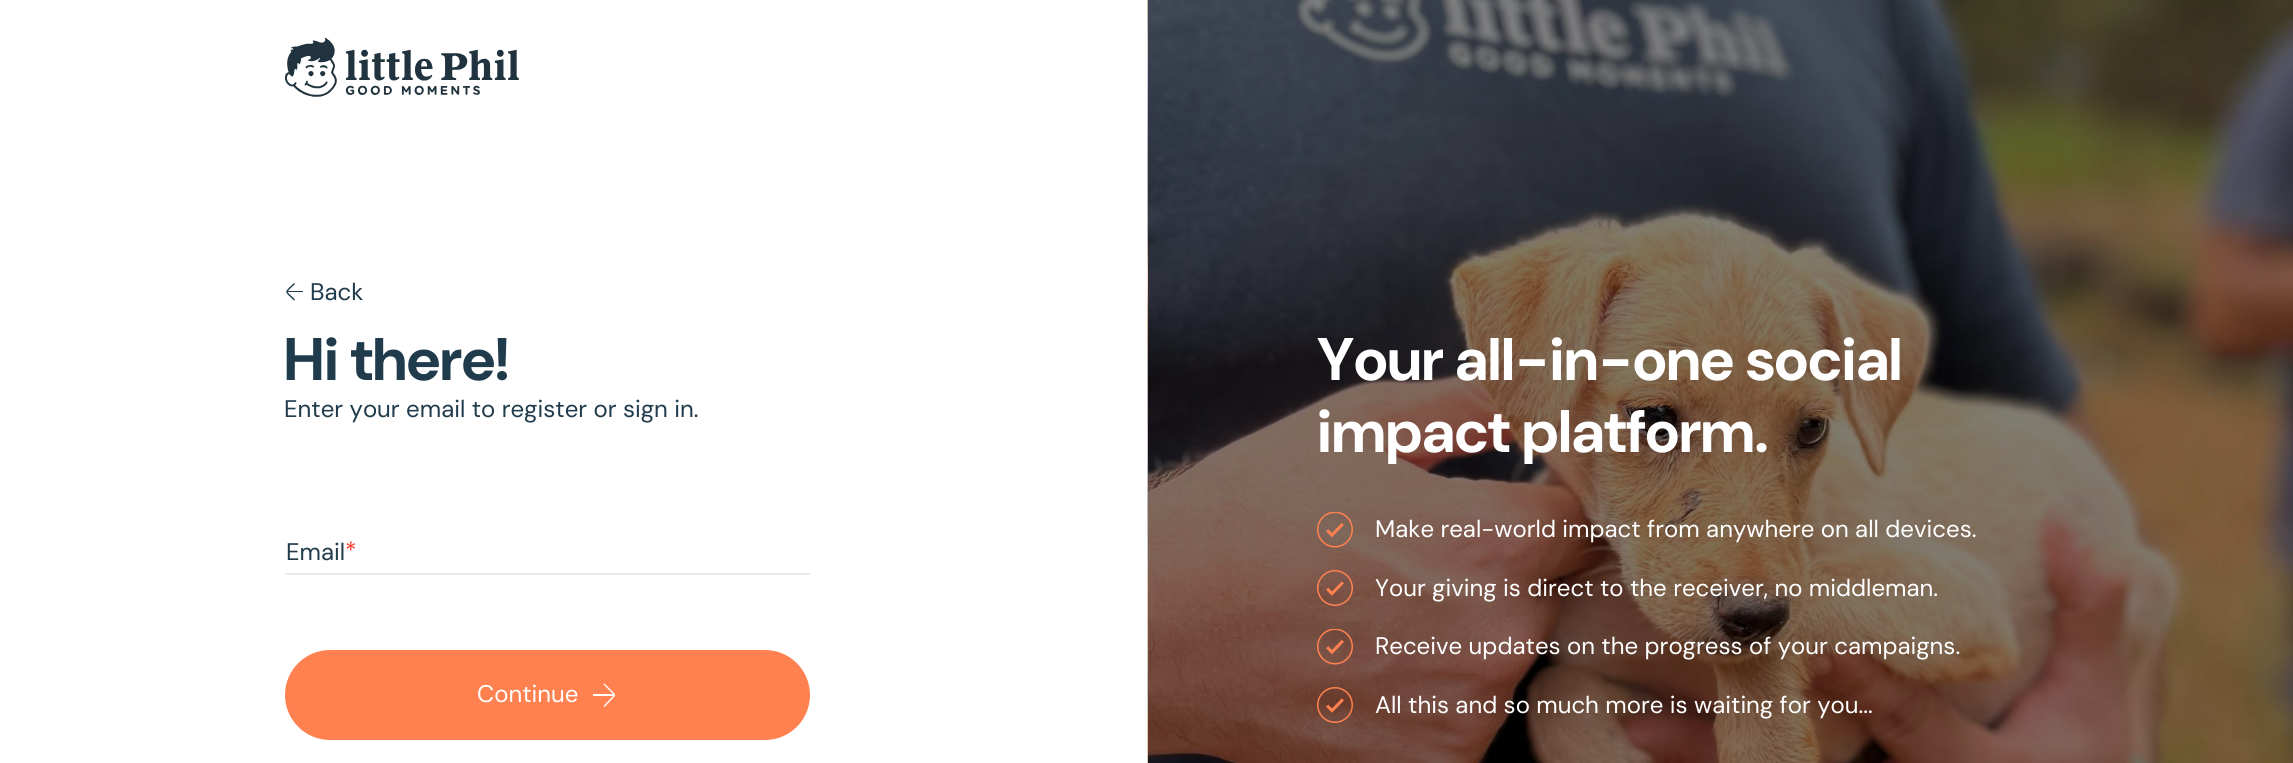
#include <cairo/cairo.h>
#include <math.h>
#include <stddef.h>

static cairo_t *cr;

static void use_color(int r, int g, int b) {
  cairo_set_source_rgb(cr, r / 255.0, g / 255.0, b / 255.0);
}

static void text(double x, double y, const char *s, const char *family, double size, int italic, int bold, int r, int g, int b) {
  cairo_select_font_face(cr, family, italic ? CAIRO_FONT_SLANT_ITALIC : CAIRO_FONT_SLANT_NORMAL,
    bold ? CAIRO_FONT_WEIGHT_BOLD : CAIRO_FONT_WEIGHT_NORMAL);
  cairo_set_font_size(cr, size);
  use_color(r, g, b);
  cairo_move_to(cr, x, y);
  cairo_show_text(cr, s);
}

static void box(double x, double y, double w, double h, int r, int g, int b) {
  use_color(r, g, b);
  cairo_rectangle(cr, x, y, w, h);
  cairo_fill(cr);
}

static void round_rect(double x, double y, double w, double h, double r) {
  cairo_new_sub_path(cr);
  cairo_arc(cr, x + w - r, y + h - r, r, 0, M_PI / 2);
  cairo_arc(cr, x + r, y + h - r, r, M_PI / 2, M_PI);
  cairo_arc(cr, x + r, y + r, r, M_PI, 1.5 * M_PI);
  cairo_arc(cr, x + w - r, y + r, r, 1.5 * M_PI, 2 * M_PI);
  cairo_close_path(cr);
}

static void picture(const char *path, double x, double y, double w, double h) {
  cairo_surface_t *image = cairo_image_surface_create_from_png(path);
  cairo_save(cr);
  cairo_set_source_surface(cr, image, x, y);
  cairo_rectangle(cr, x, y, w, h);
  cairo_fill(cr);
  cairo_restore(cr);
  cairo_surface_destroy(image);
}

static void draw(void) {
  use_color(255, 255, 255);
  cairo_paint(cr);
  picture("img_01.png", 1147, 0, 1146, 763);
  picture("img_02.png", 285, 38, 234, 59);
  cairo_new_path(cr);
  cairo_move_to(cr, 294.5, 283.5);
  cairo_curve_to(cr, 284.5, 293.5, 284.5, 290, 294.5, 300);
  use_color(32, 59, 76);
  cairo_set_line_width(cr, 1.4);
  cairo_stroke(cr);
  box(287, 291, 16, 1, 32, 59, 76);
  box(285, 573, 525, 2, 233, 235, 237);
  use_color(255, 129, 80);
  round_rect(285, 650, 525, 90, 45);
  cairo_fill(cr);
  cairo_new_path(cr);
  cairo_move_to(cr, 604, 706.5);
  cairo_line_to(cr, 614, 696);
  cairo_curve_to(cr, 614.5, 695.5, 614.5, 695, 614, 694);
  cairo_line_to(cr, 604, 684);
  use_color(255, 255, 255);
  cairo_stroke(cr);
  box(593, 694, 22, 2, 255, 255, 255);
  picture("img_03.png", 1317, 512, 36, 36);
  picture("img_04.png", 1317, 570, 36, 36);
  picture("img_05.png", 1317, 629, 36, 36);
  picture("img_06.png", 1317, 687, 36, 36);
  text(310, 300, "Back", "DM Sans", 24, 0, 0, 32, 59, 76);
  text(284, 380, "Hi there!", "DM Sans", 60, 0, 1, 32, 59, 76);
  text(284, 417, "Enter your email to register or sign in.", "DM Sans", 24, 0, 0, 32, 59, 76);
  text(286, 560, "Email", "DM Sans", 24, 0, 0, 32, 59, 76);
  text(345, 559, "*", "DM Sans", 24, 0, 0, 255, 59, 48);
  text(477, 702, "Continue", "DM Sans", 24, 0, 0, 255, 255, 255);
  text(1317, 380, "Your all-in-one social", "DM Sans", 60, 0, 1, 255, 255, 255);
  text(1317, 452, "impact platform.", "DM Sans", 60, 0, 1, 255, 255, 255);
  text(1375, 537, "Make real-world impact from anywhere on all devices.", "DM Sans", 24, 0, 0, 255, 255, 255);
  text(1375, 596, "Your giving is direct to the receiver, no middleman.", "DM Sans", 24, 0, 0, 255, 255, 255);
  text(1375, 654, "Receive updates on the progress of your campaigns.", "DM Sans", 24, 0, 0, 255, 255, 255);
  text(1375, 713, "All this and so much more is waiting for you...", "DM Sans", 24, 0, 0, 255, 255, 255);
}

int main(void) {
  cairo_surface_t *surface = cairo_image_surface_create(CAIRO_FORMAT_RGB24, 2293, 763);
  cr = cairo_create(surface);
  cairo_font_options_t *options = cairo_font_options_create();
  cairo_font_options_set_hint_metrics(options, CAIRO_HINT_METRICS_OFF);
  cairo_font_options_set_hint_style(options, CAIRO_HINT_STYLE_NONE);
  cairo_set_font_options(cr, options);
  cairo_set_miter_limit(cr, 4);
  draw();
  cairo_surface_write_to_png(surface, "out.png");
  cairo_font_options_destroy(options);
  cairo_destroy(cr);
  cairo_surface_destroy(surface);
  return 0;
}
